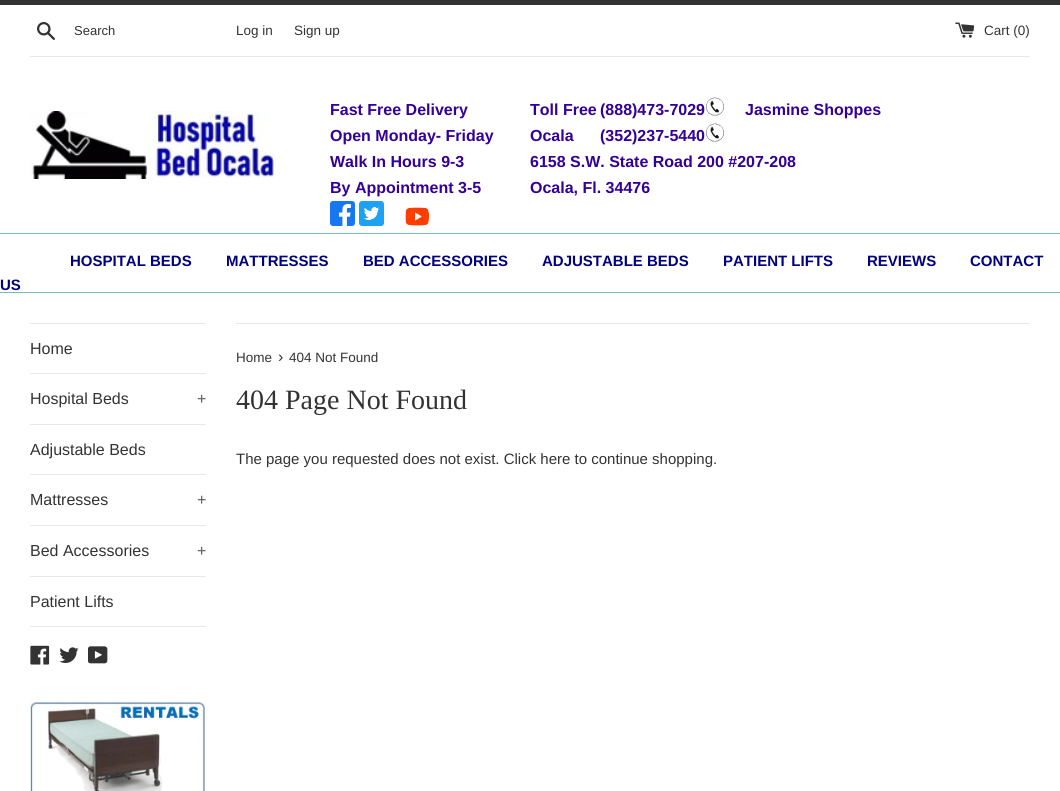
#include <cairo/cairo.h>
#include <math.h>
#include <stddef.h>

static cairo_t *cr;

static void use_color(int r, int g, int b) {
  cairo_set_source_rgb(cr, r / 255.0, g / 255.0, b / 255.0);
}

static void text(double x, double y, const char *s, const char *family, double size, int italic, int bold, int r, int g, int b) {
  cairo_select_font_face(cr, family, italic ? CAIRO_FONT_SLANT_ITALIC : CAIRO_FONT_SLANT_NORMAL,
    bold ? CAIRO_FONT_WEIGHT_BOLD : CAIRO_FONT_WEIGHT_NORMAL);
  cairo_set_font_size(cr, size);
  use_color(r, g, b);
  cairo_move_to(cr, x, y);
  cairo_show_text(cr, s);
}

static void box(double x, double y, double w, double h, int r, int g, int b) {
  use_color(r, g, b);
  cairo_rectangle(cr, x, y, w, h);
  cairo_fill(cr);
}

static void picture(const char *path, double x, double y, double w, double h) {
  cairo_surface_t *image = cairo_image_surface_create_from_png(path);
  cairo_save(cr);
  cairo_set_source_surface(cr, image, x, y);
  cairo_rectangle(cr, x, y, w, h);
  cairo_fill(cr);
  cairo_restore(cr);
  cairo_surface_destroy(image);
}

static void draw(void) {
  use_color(255, 255, 255);
  cairo_paint(cr);
  box(0, 0, 1060, 5, 51, 51, 51);
  picture("img_01.png", 37, 22, 18, 18);
  picture("img_02.png", 955, 22, 20, 16);
  box(30, 56, 1000, 1, 232, 232, 232);
  picture("img_03.png", 30, 111, 246, 68);
  picture("img_04.png", 706, 97, 18, 19);
  picture("img_04.png", 706, 123, 18, 19);
  picture("img_05.png", 330, 201, 25, 25);
  picture("img_06.png", 359, 201, 25, 25);
  picture("img_07.png", 405, 207, 25, 19);
  box(0, 233, 1060, 1, 121, 186, 186);
  box(0, 292, 1060, 1, 121, 186, 186);
  box(30, 323, 176, 1, 232, 232, 232);
  box(30, 373, 176, 1, 232, 232, 232);
  box(30, 424, 176, 1, 232, 232, 232);
  box(30, 474, 176, 1, 232, 232, 232);
  box(30, 525, 176, 1, 232, 232, 232);
  box(30, 576, 176, 1, 232, 232, 232);
  box(30, 626, 176, 1, 232, 232, 232);
  picture("img_08.png", 30, 645, 20, 20);
  picture("img_09.png", 59, 647, 20, 16);
  picture("img_10.png", 88, 646, 20, 18);
  picture("img_11.png", 30, 701, 176, 90);
  box(236, 323, 794, 1, 232, 232, 232);
  text(74, 35, "Search", "Liberation Sans", 13, 0, 0, 51, 51, 51);
  text(236, 35, "Log in", "Liberation Sans", 13.5, 0, 0, 51, 51, 51);
  text(294, 35, "Sign up", "Liberation Sans", 13.5, 0, 0, 51, 51, 51);
  text(984, 35, "Cart (0)", "Liberation Sans", 13.5, 0, 0, 51, 51, 51);
  text(330, 115, "Fast Free Delivery", "Liberation Sans", 16, 0, 1, 51, 0, 153);
  text(530, 115, "Toll Free", "Liberation Sans", 16, 0, 1, 51, 0, 153);
  text(600, 115, "(888)473-7029", "Liberation Sans", 16, 0, 1, 51, 0, 153);
  text(745, 115, "Jasmine Shoppes", "Liberation Sans", 16, 0, 1, 51, 0, 153);
  text(330, 141, "Open Monday- Friday", "Liberation Sans", 16, 0, 1, 51, 0, 153);
  text(330, 167, "Walk In Hours 9-3", "Liberation Sans", 16, 0, 1, 51, 0, 153);
  text(330, 193, "By Appointment 3-5", "Liberation Sans", 16, 0, 1, 51, 0, 153);
  text(530, 141, "Ocala", "Liberation Sans", 16, 0, 1, 51, 0, 153);
  text(600, 141, "(352)237-5440", "Liberation Sans", 16, 0, 1, 51, 0, 153);
  text(530, 167, "6158 S.W. State Road 200 #207-208", "Liberation Sans", 16, 0, 1, 51, 0, 153);
  text(530, 193, "Ocala, Fl. 34476", "Liberation Sans", 16, 0, 1, 51, 0, 153);
  text(70, 266, "HOSPITAL BEDS", "Liberation Sans", 15, 0, 1, 0, 0, 128);
  text(226, 266, "MATTRESSES", "Liberation Sans", 15, 0, 1, 0, 0, 128);
  text(363, 266, "BED ACCESSORIES", "Liberation Sans", 15, 0, 1, 0, 0, 128);
  text(542, 266, "ADJUSTABLE BEDS", "Liberation Sans", 15, 0, 1, 0, 0, 128);
  text(723, 266, "PATIENT LIFTS", "Liberation Sans", 15, 0, 1, 0, 0, 128);
  text(867, 266, "REVIEWS", "Liberation Sans", 15, 0, 1, 0, 0, 128);
  text(970, 266, "CONTACT", "Liberation Sans", 15, 0, 1, 0, 0, 128);
  text(0, 290, "US", "Liberation Sans", 15, 0, 1, 0, 0, 128);
  text(30, 354, "Home", "Liberation Sans", 16, 0, 0, 51, 51, 51);
  text(30, 404, "Hospital Beds", "Liberation Sans", 16, 0, 0, 51, 51, 51);
  text(197, 404, "+", "Liberation Sans", 16, 0, 0, 92, 92, 92);
  text(30, 455, "Adjustable Beds", "Liberation Sans", 16, 0, 0, 51, 51, 51);
  text(30, 505, "Mattresses", "Liberation Sans", 16, 0, 0, 51, 51, 51);
  text(197, 505, "+", "Liberation Sans", 16, 0, 0, 92, 92, 92);
  text(30, 556, "Bed Accessories", "Liberation Sans", 16, 0, 0, 51, 51, 51);
  text(197, 556, "+", "Liberation Sans", 16, 0, 0, 92, 92, 92);
  text(30, 607, "Patient Lifts", "Liberation Sans", 16, 0, 0, 51, 51, 51);
  text(236, 362, "Home", "Liberation Sans", 13.5, 0, 0, 51, 51, 51);
  text(278, 362, "›", "Liberation Sans", 16, 0, 0, 51, 51, 51);
  text(289, 362, "404 Not Found", "Liberation Sans", 13.5, 0, 0, 51, 51, 51);
  text(236, 409, "404 Page Not Found", "Liberation Serif", 28, 0, 0, 51, 51, 51);
  text(236, 464, "The page you requested does not exist. Click here to continue shopping.", "Liberation Sans", 15, 0, 0, 51, 51, 51);
}

int main(void) {
  cairo_surface_t *surface = cairo_image_surface_create(CAIRO_FORMAT_RGB24, 1060, 791);
  cr = cairo_create(surface);
  cairo_font_options_t *options = cairo_font_options_create();
  cairo_font_options_set_hint_metrics(options, CAIRO_HINT_METRICS_OFF);
  cairo_font_options_set_hint_style(options, CAIRO_HINT_STYLE_NONE);
  cairo_set_font_options(cr, options);
  cairo_set_miter_limit(cr, 4);
  draw();
  cairo_surface_write_to_png(surface, "out.png");
  cairo_font_options_destroy(options);
  cairo_destroy(cr);
  cairo_surface_destroy(surface);
  return 0;
}
